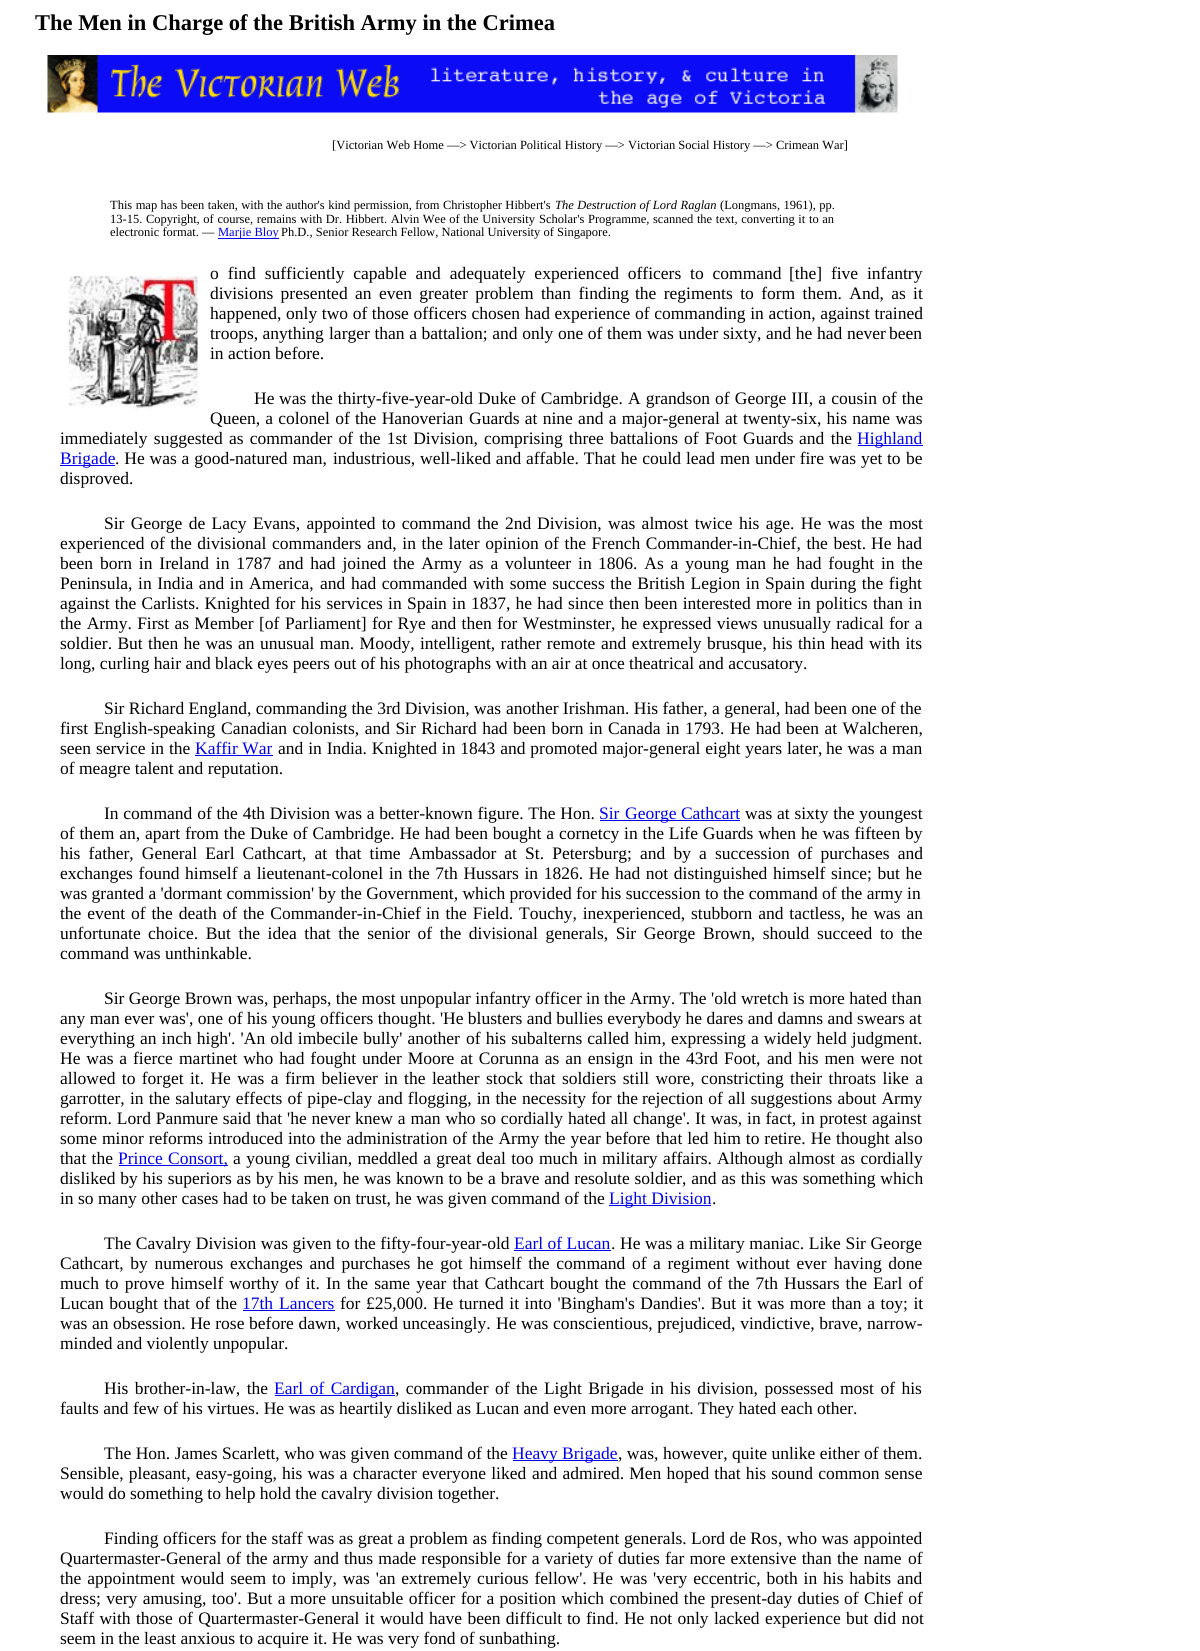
#include <cairo/cairo.h>
#include <math.h>
#include <stddef.h>

static cairo_t *cr;

static void use_color(int r, int g, int b) {
  cairo_set_source_rgb(cr, r / 255.0, g / 255.0, b / 255.0);
}

static void text(double x, double y, const char *s, const char *family, double size, int italic, int bold, int r, int g, int b) {
  cairo_select_font_face(cr, family, italic ? CAIRO_FONT_SLANT_ITALIC : CAIRO_FONT_SLANT_NORMAL,
    bold ? CAIRO_FONT_WEIGHT_BOLD : CAIRO_FONT_WEIGHT_NORMAL);
  cairo_set_font_size(cr, size);
  use_color(r, g, b);
  cairo_move_to(cr, x, y);
  cairo_show_text(cr, s);
}

static void spaced_text(double x, double y, const char *s, double letter, double word) {
  cairo_move_to(cr, x, y);
  while (*s) {
    char ch[5] = {0};
    int n = 0;
    do ch[n++] = *s++; while ((*s & 0xC0) == 0x80);
    cairo_show_text(cr, ch);
    cairo_rel_move_to(cr, letter + word * (*ch == ' '), 0);
  }
}

static void box(double x, double y, double w, double h, int r, int g, int b) {
  use_color(r, g, b);
  cairo_rectangle(cr, x, y, w, h);
  cairo_fill(cr);
}

static void picture(const char *path, double x, double y, double w, double h) {
  cairo_surface_t *image = cairo_image_surface_create_from_png(path);
  cairo_save(cr);
  cairo_set_source_surface(cr, image, x, y);
  cairo_rectangle(cr, x, y, w, h);
  cairo_fill(cr);
  cairo_restore(cr);
  cairo_surface_destroy(image);
}

static void draw(void) {
  use_color(255, 255, 255);
  cairo_paint(cr);
  picture("img_01.png", 47, 55, 851, 58);
  box(218, 238, 61, 1, 0, 0, 238);
  picture("img_02.png", 68, 276, 130, 135);
  box(858, 445, 65, 1, 0, 0, 238);
  box(60, 465, 55, 1, 0, 0, 238);
  box(195, 755, 78, 1, 0, 0, 238);
  box(600, 820, 140, 1, 0, 0, 238);
  box(119, 1165, 109, 1, 0, 0, 238);
  box(609, 1205, 102, 1, 0, 0, 238);
  box(514, 1250, 97, 1, 0, 0, 238);
  box(243, 1310, 92, 1, 0, 0, 238);
  box(275, 1395, 120, 1, 0, 0, 238);
  box(513, 1460, 105, 1, 0, 0, 238);
  text(35, 30, "The Men in Charge of the British Army in the Crimea", "Liberation Serif", 22.5, 0, 1, 0, 0, 0);
  text(332, 149, "[Victorian Web Home —> Victorian Political History —> Victorian Social History —> Crimean War]", "Liberation Serif", 12.5, 0, 0, 0, 0, 0);
  spaced_text(110, 209, "This map has been taken, with the author's kind permission, from Christopher Hibbert's", 0, 0.3);
  cairo_select_font_face(cr, "Liberation Serif", CAIRO_FONT_SLANT_ITALIC, CAIRO_FONT_WEIGHT_NORMAL);
  spaced_text(555, 209, "The Destruction of Lord Raglan", 0, 0.3);
  cairo_select_font_face(cr, "Liberation Serif", CAIRO_FONT_SLANT_NORMAL, CAIRO_FONT_WEIGHT_NORMAL);
  spaced_text(720, 209, "(Longmans, 1961), pp.", 0, 0.3);
  spaced_text(110, 223, "13-15. Copyright, of course, remains with Dr. Hibbert. Alvin Wee of the University", 0, 0.5);
  spaced_text(539, 223, "Scholar's Programme, scanned the text, converting it to an", 0, 0.5);
  text(110, 236, "electronic format. —", "Liberation Serif", 12.5, 0, 0, 0, 0, 0);
  text(218, 236, "Marjie Bloy", "Liberation Serif", 12.5, 0, 0, 0, 0, 238);
  text(281, 236, "Ph.D., Senior Research Fellow, National University of Singapore.", "Liberation Serif", 12.5, 0, 0, 0, 0, 0);
  cairo_set_font_size(cr, 17.5);
  spaced_text(210, 279, "o find sufficiently capable and adequately experienced officers to command", 0, 4.5);
  spaced_text(789, 279, "[the] five infantry", 0, 4.5);
  spaced_text(210, 299, "divisions presented an even greater problem than finding", 0, 3);
  spaced_text(635, 299, "the regiments to form them. And, as it", 0, 3);
  spaced_text(210, 319, "happened, only two of those officers chosen had experience of commanding in action, against trained", 0, 0.25);
  text(210, 339, "troops, anything", "Liberation Serif", 17.5, 0, 0, 0, 0, 0);
  spaced_text(329, 339, "larger than a battalion; and only one of them was under sixty, and he had never", 0, 0.25);
  text(889, 339, "been", "Liberation Serif", 17.5, 0, 0, 0, 0, 0);
  text(210, 359, "in action before.", "Liberation Serif", 17.5, 0, 0, 0, 0, 0);
  text(254, 404, "He", "Liberation Serif", 17.5, 0, 0, 0, 0, 0);
  spaced_text(279, 404, "was the thirty-five-year-old Duke of Cambridge.", 0, 0.75);
  spaced_text(628, 404, "A grandson of George III, a cousin of the", 0, 0.75);
  spaced_text(210, 424, "Queen, a colonel of the Hanoverian", 0, 0.9);
  spaced_text(469, 424, "Guards at nine and a major-general at twenty-six, his name was", 0, 0.9);
  spaced_text(60, 444, "immediately suggested", 0, 2);
  spaced_text(229, 444, "as commander of the 1st Division, comprising three battalions of Foot Guards", 0, 1.75);
  spaced_text(799, 444, "and the", 0, 2);
  text(857, 444, "Highland", "Liberation Serif", 17.5, 0, 0, 0, 0, 238);
  text(60, 464, "Brigade", "Liberation Serif", 17.5, 0, 0, 0, 0, 238);
  use_color(0, 0, 0);
  spaced_text(115, 464, ". He was a good-natured man,", 0, 0.5);
  spaced_text(333, 464, "industrious, well-liked and affable. That he could lead men under fire was yet", 0, 0.5);
  spaced_text(887, 464, "to be", 0, 1);
  text(60, 484, "disproved.", "Liberation Serif", 17.5, 0, 0, 0, 0, 0);
  spaced_text(104, 529, "Sir George de Lacy Evans, appointed to command the 2nd", 0, 2);
  spaced_text(537, 529, "Division, was almost twice his age. He was the most", 0, 2);
  spaced_text(60, 549, "experienced of the divisional", 0, 1.25);
  spaced_text(272, 549, "commanders and, in the later opinion of the French Commander-in-Chief, the best.", 0, 1.25);
  spaced_text(871, 549, "He had", 0, 1);
  spaced_text(60, 569, "been born in Ireland in 1787 and had joined the Army as a volunteer in", 0, 2.5);
  spaced_text(598, 569, "1806. As a young man he had fought in the", 0, 2.5);
  spaced_text(60, 589, "Peninsula, in India and in America,", 0, 1.25);
  spaced_text(320, 589, "and had commanded with some success the British Legion in Spain during the fight", 0, 1.25);
  spaced_text(60, 609, "against the Carlists. Knighted for his services in Spain in 1837, he had since", 0, 0.9);
  spaced_text(609, 609, "then been interested more in politics than in", 0, 0.9);
  spaced_text(60, 629, "the Army. First as Member [of", 0, 0.9);
  spaced_text(285, 629, "Parliament] for Rye and then for Westminster, he expressed views unusually radical", 0, 0.9);
  spaced_text(889, 629, "for a", 0, 1);
  spaced_text(60, 649, "soldier. But then he was an unusual man. Moody, intelligent, rather remote", 0, 1);
  spaced_text(601, 649, "and extremely brusque, his thin head with its", 0, 1);
  text(60, 669, "long, curling hair and black eyes peers out of his photographs with an air at once theatrical and accusatory.", "Liberation Serif", 17.5, 0, 0, 0, 0, 0);
  text(104, 714, "Sir Richard England, commanding the 3rd Division, was", "Liberation Serif", 17.5, 0, 0, 0, 0, 0);
  text(506, 714, "another Irishman. His father, a general, had been one of the", "Liberation Serif", 17.5, 0, 0, 0, 0, 0);
  spaced_text(60, 734, "first English-speaking", 0, 1.1);
  spaced_text(221, 734, "Canadian colonists, and Sir Richard had been born in Canada in 1793. He had", 0, 1.1);
  spaced_text(786, 734, "been at Walcheren,", 0, 1.1);
  spaced_text(60, 754, "seen service in the", 0, 0.5);
  text(195, 754, "Kaffir War", "Liberation Serif", 17.5, 0, 0, 0, 0, 238);
  use_color(0, 0, 0);
  spaced_text(278, 754, "and in India. Knighted in 1843 and promoted major-general eight years later,", 0, 0.5);
  spaced_text(826, 754, "he was a man", 0, 0.5);
  text(60, 774, "of meagre talent and reputation.", "Liberation Serif", 17.5, 0, 0, 0, 0, 0);
  spaced_text(104, 819, "In command of the 4th Division was a better-known figure. The Hon.", 0, 0.4);
  text(599, 819, "Sir", "Liberation Serif", 17.5, 0, 0, 0, 0, 238);
  text(625, 819, "George Cathcart", "Liberation Serif", 17.5, 0, 0, 0, 0, 238);
  use_color(0, 0, 0);
  spaced_text(745, 819, "was at sixty the youngest", 0, 0.4);
  spaced_text(60, 839, "of them an, apart from the Duke", 0, 0.5);
  spaced_text(293, 839, "of Cambridge. He had been bought a cornetcy in the Life Guards when he was fifteen", 0, 0.5);
  text(905, 839, "by", "Liberation Serif", 17.5, 0, 0, 0, 0, 0);
  spaced_text(60, 859, "his father, General Earl Cathcart, at that time Ambassador at St. Petersburg;", 0, 3.75);
  spaced_text(640, 859, "and by a succession of purchases and", 0, 3.75);
  spaced_text(60, 879, "exchanges found himself a lieutenant-colonel", 0, 1.3);
  spaced_text(389, 879, "in the 7th Hussars in 1826. He had not distinguished himself since; but he", 0, 1.3);
  text(60, 899, "was granted a 'dormant commission' by the Government, which provided for his succession to the command of the army in", "Liberation Serif", 17.5, 0, 0, 0, 0, 0);
  spaced_text(60, 919, "the event of the death of the Commander-in-Chief", 0, 1.5);
  spaced_text(426, 919, "in the Field. Touchy, inexperienced, stubborn and tactless, he was an", 0, 1.5);
  text(60, 939, "unfortunate", "Liberation Serif", 17.5, 0, 0, 0, 0, 0);
  spaced_text(148, 939, "choice. But the idea that the senior of the divisional generals, Sir George", 0, 3.25);
  spaced_text(703, 939, "Brown, should succeed to the", 0, 3.25);
  text(60, 959, "command was unthinkable.", "Liberation Serif", 17.5, 0, 0, 0, 0, 0);
  text(104, 1004, "Sir George Brown was, perhaps, the most unpopular infantry officer in the Army. The 'old wretch is more hated than", "Liberation Serif", 17.5, 0, 0, 0, 0, 0);
  text(60, 1024, "any man ever was', one", "Liberation Serif", 17.5, 0, 0, 0, 0, 0);
  text(228, 1024, "of his young officers thought. 'He blusters and bullies everybody he dares and damns and swears at", "Liberation Serif", 17.5, 0, 0, 0, 0, 0);
  spaced_text(60, 1044, "everything an inch high'. 'An old imbecile bully' another", 0, 0.75);
  spaced_text(466, 1044, "of his subalterns called him, expressing a widely held judgment.", 0, 0.75);
  spaced_text(60, 1064, "He was a fierce", 0, 1.5);
  spaced_text(179, 1064, "martinet who had fought under Moore at Corunna as an ensign in the 43rd Foot,", 0, 1.5);
  spaced_text(767, 1064, "and his men were not", 0, 1.5);
  spaced_text(60, 1084, "allowed to forget it. He was a firm believer in the leather", 0, 2);
  spaced_text(486, 1084, "stock that soldiers still wore, constricting their throats like a", 0, 2);
  text(60, 1104, "garrotter,", "Liberation Serif", 17.5, 0, 0, 0, 0, 0);
  spaced_text(130, 1104, "in the salutary effects of pipe-clay and flogging, in the necessity for the", 0, 0.75);
  spaced_text(642, 1104, "rejection of all suggestions about Army", 0, 0.75);
  spaced_text(60, 1124, "reform. Lord Panmure said that 'he never", 0, 0.5);
  spaced_text(355, 1124, "knew a man who so cordially hated all change'. It was, in fact, in protest against", 0, 0.5);
  spaced_text(60, 1144, "some minor reforms introduced into the administration of the Army the year before", 0, 0.6);
  spaced_text(656, 1144, "that led him to retire. He thought also", 0, 0.6);
  spaced_text(60, 1164, "that the", 0, 1);
  text(118, 1164, "Prince", "Liberation Serif", 17.5, 0, 0, 0, 0, 238);
  text(168, 1164, "Consort,", "Liberation Serif", 17.5, 0, 0, 0, 0, 238);
  use_color(0, 0, 0);
  spaced_text(233, 1164, "a young civilian, meddled a great deal too much in military affairs.", 0, 1);
  spaced_text(717, 1164, "Although almost as cordially", 0, 1);
  spaced_text(60, 1184, "disliked by his superiors as by his men, he was", 0, 0.4);
  spaced_text(396, 1184, "known to be a brave and resolute soldier, and as this was something which", 0, 0.4);
  text(60, 1204, "in so many other cases had to be taken on trust, he was given command of the", "Liberation Serif", 17.5, 0, 0, 0, 0, 0);
  text(609, 1204, "Light Division", "Liberation Serif", 17.5, 0, 0, 0, 0, 238);
  text(712, 1204, ".", "Liberation Serif", 17.5, 0, 0, 0, 0, 0);
  spaced_text(104, 1249, "The Cavalry Division was given to the fifty-four-year-old", 0, 0.25);
  text(514, 1249, "Earl of Lucan", "Liberation Serif", 17.5, 0, 0, 0, 0, 238);
  use_color(0, 0, 0);
  spaced_text(611, 1249, ". He was a military maniac. Like Sir George", 0, 0.25);
  spaced_text(60, 1269, "Cathcart, by numerous", 0, 2.25);
  spaced_text(230, 1269, "exchanges and purchases he got himself the command of a regiment without ever", 0, 2.25);
  spaced_text(834, 1269, "having done", 0, 2.25);
  spaced_text(60, 1289, "much to prove himself worthy of it. In the same year that Cathcart", 0, 1.75);
  spaced_text(550, 1289, "bought the command of the 7th Hussars the Earl of", 0, 1.75);
  spaced_text(60, 1309, "Lucan bought that of the", 0, 1.25);
  text(242, 1309, "17th", "Liberation Serif", 17.5, 0, 0, 0, 0, 238);
  text(279, 1309, "Lancers", "Liberation Serif", 17.5, 0, 0, 0, 0, 238);
  use_color(0, 0, 0);
  spaced_text(340, 1309, "for £25,000. He turned it into 'Bingham's Dandies'. But it", 0, 1.25);
  spaced_text(757, 1309, "was more than a toy; it", 0, 1.25);
  spaced_text(60, 1329, "was an obsession. He rose before dawn, worked unceasingly.", 0, 0.3);
  spaced_text(496, 1329, "He was conscientious, prejudiced, vindictive, brave, narrow-", 0, 0.3);
  text(60, 1349, "minded and violently unpopular.", "Liberation Serif", 17.5, 0, 0, 0, 0, 0);
  spaced_text(104, 1394, "His brother-in-law, the", 0, 2.1);
  use_color(0, 0, 238);
  spaced_text(274, 1394, "Earl of Cardigan", 0, 2.1);
  use_color(0, 0, 0);
  spaced_text(395, 1394, ", commander", 0, 2.1);
  spaced_text(495, 1394, "of the Light Brigade in his division, possessed most of his", 0, 2.1);
  text(60, 1414, "faults and few of his virtues. He was as heartily disliked as Lucan and even more arrogant. They hated each other.", "Liberation Serif", 17.5, 0, 0, 0, 0, 0);
  spaced_text(104, 1459, "The Hon. James Scarlett, who was given command of the", 0, 0.1);
  text(512, 1459, "Heavy Brigade", "Liberation Serif", 17.5, 0, 0, 0, 0, 238);
  use_color(0, 0, 0);
  spaced_text(618, 1459, ", was, however, quite unlike either", 0, 0.1);
  text(864, 1459, "of them.", "Liberation Serif", 17.5, 0, 0, 0, 0, 0);
  spaced_text(60, 1479, "Sensible, pleasant, easy-going, his was a character everyone liked", 0, 0.75);
  spaced_text(532, 1479, "and admired. Men hoped that his sound common sense", 0, 0.75);
  text(60, 1499, "would do something to help hold the cavalry division together.", "Liberation Serif", 17.5, 0, 0, 0, 0, 0);
  spaced_text(104, 1544, "Finding officers for the staff was as great a problem as finding competent", 0, 0.1);
  text(624, 1544, "generals. Lord de Ros", "Liberation Serif", 17.5, 0, 0, 0, 0, 0);
  spaced_text(778, 1544, ", who was appointed", 0, 0.1);
  spaced_text(60, 1564, "Quartermaster-General of the army and", 0, 0.75);
  spaced_text(344, 1564, "thus made responsible for a variety of duties far more extensive than the name", 0, 0.75);
  text(908, 1564, "of", "Liberation Serif", 17.5, 0, 0, 0, 0, 0);
  spaced_text(60, 1584, "the appointment would seem to imply, was 'an extremely curious fellow'. He", 0, 1.5);
  spaced_text(620, 1584, "was 'very eccentric, both in his habits and", 0, 1.5);
  spaced_text(60, 1604, "dress; very amusing, too'. But a", 0, 1);
  spaced_text(290, 1604, "more unsuitable officer for a position which combined the present-day duties", 0, 1);
  spaced_text(844, 1604, "of Chief of", 0, 1);
  spaced_text(60, 1624, "Staff with those of Quartermaster-General it would have been difficult", 0, 1);
  spaced_text(567, 1624, "to find. He not only lacked experience but did not", 0, 1);
  text(60, 1644, "seem in the least anxious to acquire it. He was very fond of sunbathing.", "Liberation Serif", 17.5, 0, 0, 0, 0, 0);
}

int main(void) {
  cairo_surface_t *surface = cairo_image_surface_create(CAIRO_FORMAT_RGB24, 1200, 1651);
  cr = cairo_create(surface);
  cairo_font_options_t *options = cairo_font_options_create();
  cairo_font_options_set_hint_metrics(options, CAIRO_HINT_METRICS_OFF);
  cairo_font_options_set_hint_style(options, CAIRO_HINT_STYLE_NONE);
  cairo_set_font_options(cr, options);
  cairo_set_miter_limit(cr, 4);
  draw();
  cairo_surface_write_to_png(surface, "out.png");
  cairo_font_options_destroy(options);
  cairo_destroy(cr);
  cairo_surface_destroy(surface);
  return 0;
}
